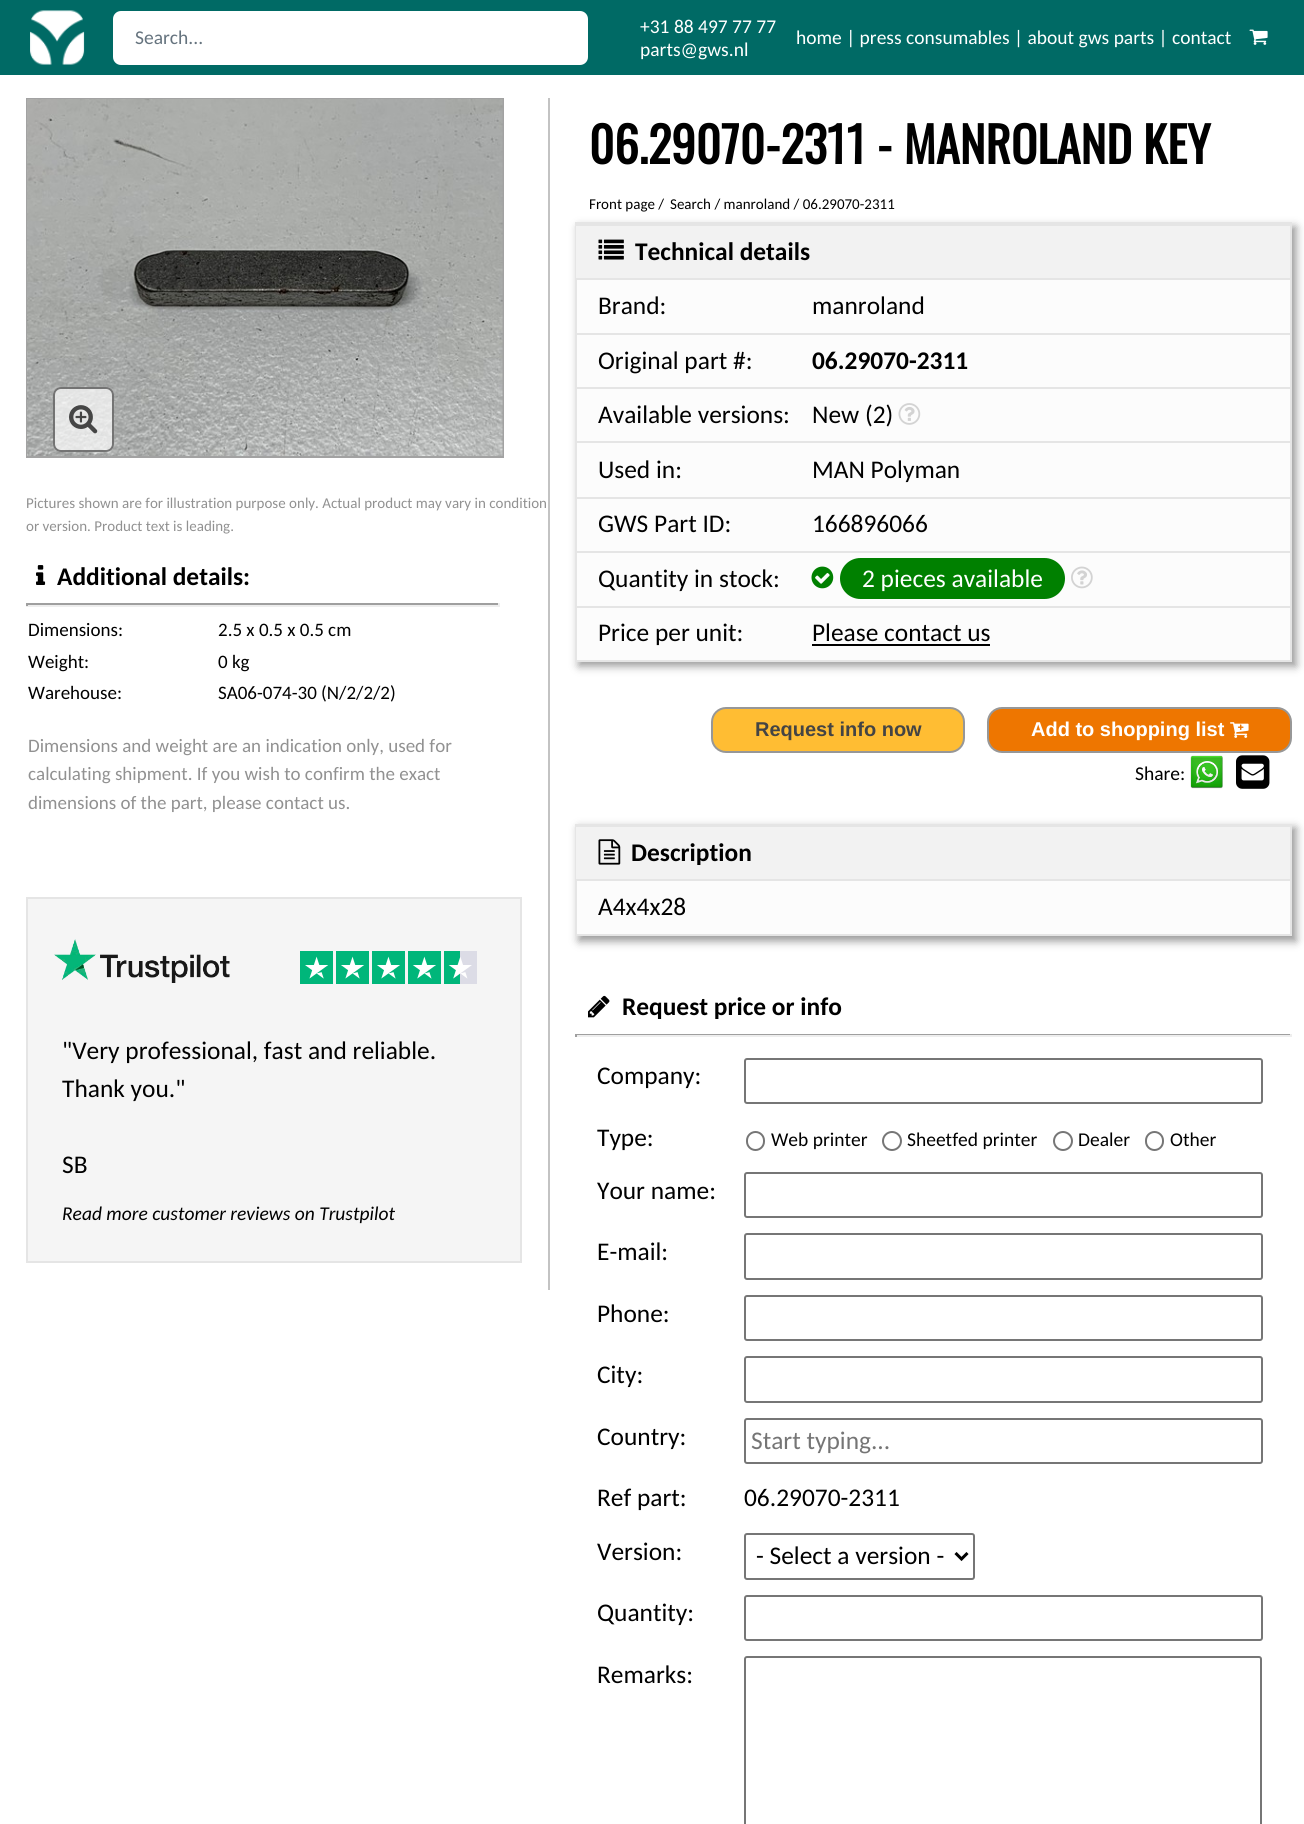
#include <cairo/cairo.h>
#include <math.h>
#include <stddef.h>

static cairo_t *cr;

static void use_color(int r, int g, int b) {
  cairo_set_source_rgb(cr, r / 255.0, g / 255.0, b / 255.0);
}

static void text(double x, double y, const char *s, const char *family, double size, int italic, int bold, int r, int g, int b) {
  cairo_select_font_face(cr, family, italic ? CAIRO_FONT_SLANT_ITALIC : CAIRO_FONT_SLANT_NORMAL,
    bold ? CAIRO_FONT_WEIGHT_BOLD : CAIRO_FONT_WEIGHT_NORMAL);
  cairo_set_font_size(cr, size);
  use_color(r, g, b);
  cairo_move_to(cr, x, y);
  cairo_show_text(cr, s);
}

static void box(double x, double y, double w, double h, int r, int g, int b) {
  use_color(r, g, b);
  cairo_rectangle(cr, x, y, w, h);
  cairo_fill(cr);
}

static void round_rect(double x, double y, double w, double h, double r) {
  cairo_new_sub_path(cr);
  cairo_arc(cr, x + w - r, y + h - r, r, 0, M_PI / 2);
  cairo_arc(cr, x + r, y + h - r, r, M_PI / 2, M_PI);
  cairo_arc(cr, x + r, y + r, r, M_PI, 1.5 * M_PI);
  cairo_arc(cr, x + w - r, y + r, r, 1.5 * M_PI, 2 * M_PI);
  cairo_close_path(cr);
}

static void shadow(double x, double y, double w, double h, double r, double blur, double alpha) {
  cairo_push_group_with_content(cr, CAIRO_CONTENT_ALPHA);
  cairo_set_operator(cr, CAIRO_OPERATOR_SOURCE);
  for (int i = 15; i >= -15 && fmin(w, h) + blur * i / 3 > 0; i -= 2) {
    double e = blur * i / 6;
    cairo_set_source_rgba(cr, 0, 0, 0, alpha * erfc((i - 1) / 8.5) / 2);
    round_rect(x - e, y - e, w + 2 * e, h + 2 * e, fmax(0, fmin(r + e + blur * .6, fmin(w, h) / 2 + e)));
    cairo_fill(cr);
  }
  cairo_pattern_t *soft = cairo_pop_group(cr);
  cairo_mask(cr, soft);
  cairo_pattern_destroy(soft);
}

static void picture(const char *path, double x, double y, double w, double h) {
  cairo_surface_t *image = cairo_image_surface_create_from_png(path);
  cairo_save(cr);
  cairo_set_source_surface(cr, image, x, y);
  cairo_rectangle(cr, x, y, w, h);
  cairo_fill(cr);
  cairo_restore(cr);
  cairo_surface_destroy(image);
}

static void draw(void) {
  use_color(255, 255, 255);
  cairo_paint(cr);
  box(0, 0, 1304, 75, 0, 106, 101);
  picture("img_01.png", 30, 10, 55, 55);
  use_color(255, 255, 255);
  round_rect(113, 11, 475, 54, 8);
  cairo_fill(cr);
  picture("img_02.png", 1249, 29, 19, 16);
  box(548, 98, 2, 1192, 195, 195, 195);
  cairo_rectangle(cr, 27, 99, 476, 358);
  use_color(162, 162, 162);
  cairo_stroke(cr);
  picture("img_03.png", 27, 99, 476, 357);
  cairo_set_source_rgba(cr, 1, 1, 1, 0.7);
  round_rect(53, 387, 61, 65, 8);
  cairo_fill(cr);
  round_rect(54, 388, 59, 63, 7);
  cairo_set_source_rgba(cr, 0.267, 0.267, 0.267, 0.7);
  cairo_stroke(cr);
  picture("img_04.png", 69, 405, 29, 29);
  picture("img_05.png", 36, 565, 10, 20);
  box(26, 603, 474, 2, 159, 159, 159);
  box(498, 603, 2, 3, 238, 238, 238);
  box(26, 605, 474, 2, 238, 238, 238);
  box(26, 603, 2, 3, 159, 159, 159);
  use_color(245, 245, 245);
  cairo_rectangle(cr, 27, 898, 494, 364);
  cairo_fill_preserve(cr);
  use_color(229, 229, 229);
  cairo_stroke(cr);
  picture("img_06.png", 54, 939, 176, 44);
  picture("img_07.png", 300, 951, 177, 33);
  use_color(115, 115, 115);
  shadow(579, 227, 717, 439, 0, 4.5, 0.75);
  box(577, 280, 713, 380, 252, 252, 252);
  cairo_rectangle(cr, 576, 223, 715, 438);
  use_color(229, 229, 229);
  cairo_stroke(cr);
  box(576, 226, 714, 52, 242, 242, 242);
  box(576, 224, 714, 2, 229, 229, 229);
  picture("img_08.png", 598, 239, 26, 21);
  box(576, 278, 714, 2, 229, 229, 229);
  box(576, 333, 714, 2, 229, 229, 229);
  box(576, 387, 714, 2, 229, 229, 229);
  picture("img_09.png", 898, 403, 23, 22);
  box(576, 441, 714, 2, 229, 229, 229);
  box(576, 497, 714, 2, 229, 229, 229);
  box(576, 551, 714, 2, 229, 229, 229);
  picture("img_10.png", 811, 566, 23, 23);
  use_color(0, 128, 0);
  round_rect(840, 558, 225, 41, 20.5);
  cairo_fill(cr);
  picture("img_11.png", 1071, 566, 22, 23);
  box(576, 606, 714, 2, 229, 229, 229);
  box(812, 644, 178, 2, 0, 0, 0);
  use_color(255, 189, 51);
  round_rect(712, 708, 252, 44, 14);
  cairo_fill_preserve(cr);
  use_color(151, 151, 151);
  cairo_stroke(cr);
  use_color(238, 118, 0);
  round_rect(988, 708, 303, 44, 14);
  cairo_fill_preserve(cr);
  use_color(151, 151, 151);
  cairo_stroke(cr);
  picture("img_12.png", 1230, 722, 19, 16);
  picture("img_13.png", 1190, 755, 33, 34);
  picture("img_14.png", 1236, 755, 34, 34);
  use_color(115, 115, 115);
  shadow(579, 828, 717, 113, 0, 4.5, 0.75);
  box(577, 881, 713, 53, 252, 252, 252);
  cairo_rectangle(cr, 576, 825, 715, 110);
  use_color(229, 229, 229);
  cairo_stroke(cr);
  box(576, 827, 714, 52, 242, 242, 242);
  box(576, 826, 714, 1, 229, 229, 229);
  picture("img_15.png", 598, 839, 23, 26);
  box(576, 879, 714, 2, 229, 229, 229);
  picture("img_16.png", 588, 995, 22, 23);
  box(575, 1034, 717, 1, 159, 159, 159);
  box(1290, 1034, 2, 3, 238, 238, 238);
  box(575, 1035, 717, 2, 238, 238, 238);
  box(575, 1034, 2, 3, 159, 159, 159);
  round_rect(745, 1059, 517, 44, 2);
  use_color(118, 118, 118);
  cairo_stroke(cr);
  round_rect(747, 1132, 17, 18, 8.5);
  cairo_stroke(cr);
  cairo_arc(cr, 892, 1141, 9, 0, 2 * M_PI);
  cairo_stroke(cr);
  cairo_arc(cr, 1063, 1141, 9, 0, 2 * M_PI);
  cairo_stroke(cr);
  round_rect(1146, 1132, 17, 18, 8.5);
  cairo_stroke(cr);
  round_rect(745, 1173, 517, 44, 2);
  cairo_stroke(cr);
  round_rect(745, 1234, 517, 45, 2);
  cairo_stroke(cr);
  round_rect(745, 1296, 517, 44, 2);
  cairo_stroke(cr);
  round_rect(745, 1357, 517, 45, 2);
  cairo_stroke(cr);
  round_rect(745, 1419, 517, 44, 2);
  cairo_stroke(cr);
  round_rect(745, 1534, 229, 45, 2);
  cairo_stroke(cr);
  cairo_new_path(cr);
  cairo_move_to(cr, 955.5, 1553);
  cairo_line_to(cr, 961.5, 1559);
  cairo_line_to(cr, 967.5, 1553);
  use_color(0, 0, 0);
  cairo_set_line_width(cr, 3);
  cairo_stroke(cr);
  round_rect(745, 1596, 517, 44, 2);
  use_color(118, 118, 118);
  cairo_set_line_width(cr, 2);
  cairo_stroke(cr);
  round_rect(745, 1657, 516, 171, 2);
  cairo_stroke(cr);
  text(135, 44, "Search...", "Carlito", 19.5, 0, 0, 101, 115, 126);
  text(640, 33, "+31 88 497 77 77", "Carlito", 19.5, 0, 0, 255, 255, 255);
  text(640, 56, "parts@gws.nl", "Carlito", 19.5, 0, 0, 255, 255, 255);
  text(796, 44, "home | press consumables | about gws parts | contact", "Carlito", 19.5, 0, 0, 255, 255, 255);
  text(26, 508, "Pictures shown are for illustration purpose only. Actual product may vary in condition", "Carlito", 15, 0, 0, 145, 145, 145);
  text(26, 531, "or version. Product text is leading.", "Carlito", 15, 0, 0, 145, 145, 145);
  text(57, 585, "Additional details:", "Carlito", 25.4, 0, 1, 0, 0, 0);
  text(28, 636, "Dimensions:", "Carlito", 19, 0, 0, 0, 0, 0);
  text(218, 636, "2.5 x 0.5 x 0.5 cm", "Carlito", 19, 0, 0, 0, 0, 0);
  text(28, 668, "Weight:", "Carlito", 19, 0, 0, 0, 0, 0);
  text(218, 668, "0 kg", "Carlito", 19, 0, 0, 0, 0, 0);
  text(28, 699, "Warehouse:", "Carlito", 19, 0, 0, 0, 0, 0);
  text(218, 699, "SA06-074-30 (N/2/2/2)", "Carlito", 19, 0, 0, 0, 0, 0);
  text(28, 752, "Dimensions and weight are an indication only, used for", "Carlito", 19, 0, 0, 145, 145, 145);
  text(28, 780, "calculating shipment. If you wish to confirm the exact", "Carlito", 19, 0, 0, 145, 145, 145);
  text(28, 809, "dimensions of the part, please contact us.", "Carlito", 19, 0, 0, 145, 145, 145);
  text(62, 1059, "\"Very professional, fast and reliable.", "Carlito", 25.4, 0, 0, 0, 0, 0);
  text(62, 1097, "Thank you.\"", "Carlito", 25.4, 0, 0, 0, 0, 0);
  text(62, 1173, "SB", "Carlito", 25.4, 0, 0, 0, 0, 0);
  text(62, 1220, "Read more customer reviews on Trustpilot", "Carlito", 19.5, 1, 0, 0, 0, 0);
  text(589, 164, "06.29070-2311 - MANROLAND KEY", "Oswald", 48.75, 0, 1, 0, 0, 0);
  text(589, 209, "Front page /", "Carlito", 15, 0, 0, 0, 0, 0);
  text(670, 209, "Search / manroland / 06.29070-2311", "Carlito", 15, 0, 0, 0, 0, 0);
  text(635, 260, "Technical details", "Carlito", 25.4, 0, 1, 0, 0, 0);
  text(598, 314, "Brand:", "Carlito", 25.4, 0, 0, 0, 0, 0);
  text(812, 314, "manroland", "Carlito", 25.4, 0, 0, 0, 0, 0);
  text(598, 369, "Original part #:", "Carlito", 25.4, 0, 0, 0, 0, 0);
  text(812, 369, "06.29070-2311", "Carlito", 25.4, 0, 1, 0, 0, 0);
  text(598, 423, "Available versions:", "Carlito", 25.4, 0, 0, 0, 0, 0);
  text(812, 423, "New (2)", "Carlito", 25.4, 0, 0, 0, 0, 0);
  text(598, 478, "Used in:", "Carlito", 25.4, 0, 0, 0, 0, 0);
  text(812, 478, "MAN Polyman", "Carlito", 25.4, 0, 0, 0, 0, 0);
  text(598, 532, "GWS Part ID:", "Carlito", 25.4, 0, 0, 0, 0, 0);
  text(812, 532, "166896066", "Carlito", 25.4, 0, 0, 0, 0, 0);
  text(598, 587, "Quantity in stock:", "Carlito", 25.4, 0, 0, 0, 0, 0);
  text(862, 587, "2 pieces available", "Carlito", 25.4, 0, 0, 255, 255, 255);
  text(598, 641, "Price per unit:", "Carlito", 25.4, 0, 0, 0, 0, 0);
  text(812, 641, "Please contact us", "Carlito", 25.4, 0, 0, 0, 0, 0);
  text(755, 736, "Request info now", "Liberation Sans", 20, 0, 1, 68, 68, 68);
  text(1031, 736, "Add to shopping list", "Liberation Sans", 20, 0, 1, 255, 255, 255);
  text(1135, 780, "Share:", "Carlito", 19.5, 0, 0, 0, 0, 0);
  text(631, 861, "Description", "Carlito", 25.4, 0, 1, 0, 0, 0);
  text(598, 915, "A4x4x28", "Carlito", 25.4, 0, 0, 0, 0, 0);
  text(622, 1015, "Request price or info", "Carlito", 25.4, 0, 1, 0, 0, 0);
  text(597, 1084, "Company:", "Carlito", 25.4, 0, 0, 0, 0, 0);
  text(597, 1146, "Type:", "Carlito", 25.4, 0, 0, 0, 0, 0);
  text(771, 1146, "Web printer", "Carlito", 19.5, 0, 0, 0, 0, 0);
  text(907, 1146, "Sheetfed printer", "Carlito", 19.5, 0, 0, 0, 0, 0);
  text(1078, 1146, "Dealer", "Carlito", 19.5, 0, 0, 0, 0, 0);
  text(1170, 1146, "Other", "Carlito", 19.5, 0, 0, 0, 0, 0);
  text(597, 1199, "Your name:", "Carlito", 25.4, 0, 0, 0, 0, 0);
  text(597, 1260, "E-mail:", "Carlito", 25.4, 0, 0, 0, 0, 0);
  text(597, 1322, "Phone:", "Carlito", 25.4, 0, 0, 0, 0, 0);
  text(597, 1383, "City:", "Carlito", 25.4, 0, 0, 0, 0, 0);
  text(597, 1445, "Country:", "Carlito", 25.4, 0, 0, 0, 0, 0);
  text(751, 1449, "Start typing...", "Carlito", 25.4, 0, 0, 117, 117, 117);
  text(597, 1506, "Ref part:", "Carlito", 25.4, 0, 0, 0, 0, 0);
  text(744, 1506, "06.29070-2311", "Carlito", 25.4, 0, 0, 0, 0, 0);
  text(597, 1560, "Version:", "Carlito", 25.4, 0, 0, 0, 0, 0);
  text(756, 1564, "- Select a version -", "Carlito", 25.4, 0, 0, 0, 0, 0);
  text(597, 1621, "Quantity:", "Carlito", 25.4, 0, 0, 0, 0, 0);
  text(597, 1683, "Remarks:", "Carlito", 25.4, 0, 0, 0, 0, 0);
}

int main(void) {
  cairo_surface_t *surface = cairo_image_surface_create(CAIRO_FORMAT_RGB24, 1304, 1824);
  cr = cairo_create(surface);
  cairo_font_options_t *options = cairo_font_options_create();
  cairo_font_options_set_hint_metrics(options, CAIRO_HINT_METRICS_OFF);
  cairo_font_options_set_hint_style(options, CAIRO_HINT_STYLE_NONE);
  cairo_set_font_options(cr, options);
  cairo_set_miter_limit(cr, 4);
  draw();
  cairo_surface_write_to_png(surface, "out.png");
  cairo_font_options_destroy(options);
  cairo_destroy(cr);
  cairo_surface_destroy(surface);
  return 0;
}
